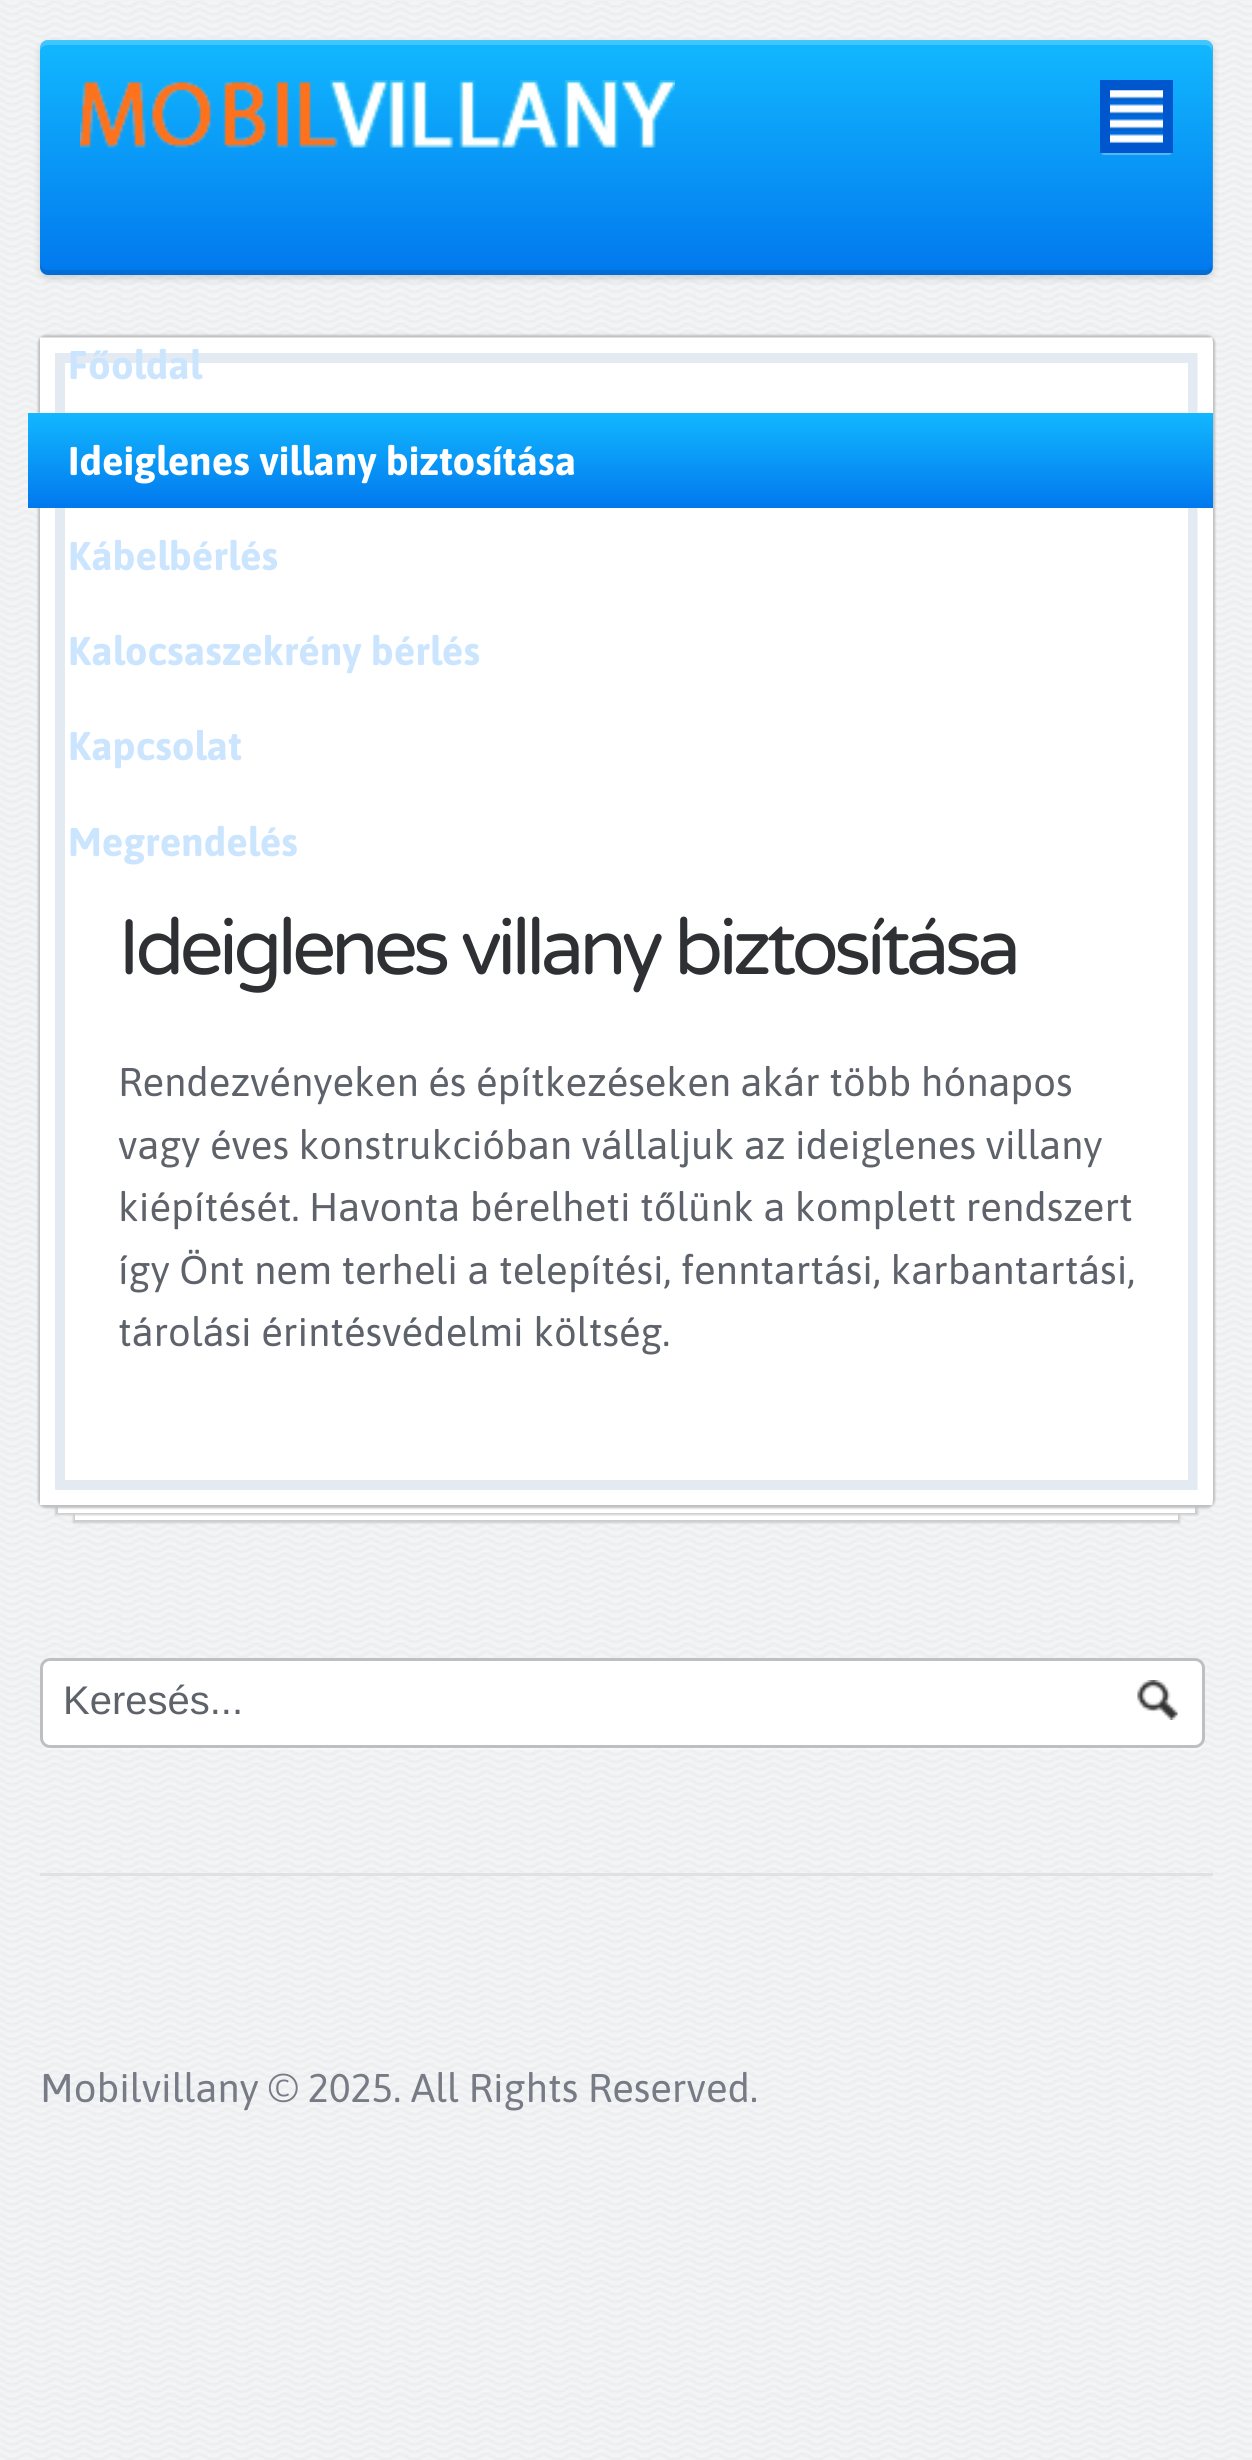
#include <cairo/cairo.h>
#include <math.h>
#include <stddef.h>

static cairo_t *cr;

static void use_color(int r, int g, int b) {
  cairo_set_source_rgb(cr, r / 255.0, g / 255.0, b / 255.0);
}

static void text(double x, double y, const char *s, const char *family, double size, int italic, int bold, int r, int g, int b) {
  cairo_select_font_face(cr, family, italic ? CAIRO_FONT_SLANT_ITALIC : CAIRO_FONT_SLANT_NORMAL,
    bold ? CAIRO_FONT_WEIGHT_BOLD : CAIRO_FONT_WEIGHT_NORMAL);
  cairo_set_font_size(cr, size);
  use_color(r, g, b);
  cairo_move_to(cr, x, y);
  cairo_show_text(cr, s);
}

static void spaced_text(double x, double y, const char *s, double letter, double word) {
  cairo_move_to(cr, x, y);
  while (*s) {
    char ch[5] = {0};
    int n = 0;
    do ch[n++] = *s++; while ((*s & 0xC0) == 0x80);
    cairo_show_text(cr, ch);
    cairo_rel_move_to(cr, letter + word * (*ch == ' '), 0);
  }
}

static void box(double x, double y, double w, double h, int r, int g, int b) {
  use_color(r, g, b);
  cairo_rectangle(cr, x, y, w, h);
  cairo_fill(cr);
}

static void round_rect(double x, double y, double w, double h, double r) {
  cairo_new_sub_path(cr);
  cairo_arc(cr, x + w - r, y + h - r, r, 0, M_PI / 2);
  cairo_arc(cr, x + r, y + h - r, r, M_PI / 2, M_PI);
  cairo_arc(cr, x + r, y + r, r, M_PI, 1.5 * M_PI);
  cairo_arc(cr, x + w - r, y + r, r, 1.5 * M_PI, 2 * M_PI);
  cairo_close_path(cr);
}

static void shadow(double x, double y, double w, double h, double r, double blur, double alpha) {
  cairo_push_group_with_content(cr, CAIRO_CONTENT_ALPHA);
  cairo_set_operator(cr, CAIRO_OPERATOR_SOURCE);
  for (int i = 15; i >= -15 && fmin(w, h) + blur * i / 3 > 0; i -= 2) {
    double e = blur * i / 6;
    cairo_set_source_rgba(cr, 0, 0, 0, alpha * erfc((i - 1) / 8.5) / 2);
    round_rect(x - e, y - e, w + 2 * e, h + 2 * e, fmax(0, fmin(r + e + blur * .6, fmin(w, h) / 2 + e)));
    cairo_fill(cr);
  }
  cairo_pattern_t *soft = cairo_pop_group(cr);
  cairo_mask(cr, soft);
  cairo_pattern_destroy(soft);
}

static void picture(const char *path, double x, double y, double w, double h) {
  cairo_surface_t *image = cairo_image_surface_create_from_png(path);
  cairo_save(cr);
  cairo_set_source_surface(cr, image, x, y);
  cairo_rectangle(cr, x, y, w, h);
  cairo_fill(cr);
  cairo_restore(cr);
  cairo_surface_destroy(image);
}

static void draw(void) {
  cairo_pattern_t *gradient;
  use_color(241, 242, 245);
  cairo_paint(cr);
  picture("img_01.png", 0, 1, 1252, 2459);
  use_color(0, 0, 0);
  shadow(40, 43, 1173, 235, 8, 4, 0.15);
  gradient = cairo_pattern_create_linear(626, 40, 626, 275);
  cairo_pattern_add_color_stop_rgba(gradient, 0, 0.071, 0.722, 1, 1);
  cairo_pattern_add_color_stop_rgba(gradient, 1, 0.004, 0.471, 0.933, 1);
  cairo_set_source(cr, gradient);
  cairo_pattern_destroy(gradient);
  round_rect(40, 40, 1173, 235, 8);
  cairo_fill(cr);
  cairo_set_source_rgba(cr, 1, 1, 1, 0.2);
  cairo_new_path(cr);
  cairo_move_to(cr, 48, 45);
  cairo_line_to(cr, 1205, 45);
  cairo_curve_to(cr, 1209, 45, 1212, 48, 1212, 52);
  cairo_line_to(cr, 1212, 271);
  cairo_curve_to(cr, 1213, 270, 1213, 268, 1213, 267);
  cairo_line_to(cr, 1213, 48);
  cairo_curve_to(cr, 1213, 44, 1209, 40, 1205, 40);
  cairo_line_to(cr, 48, 40);
  cairo_curve_to(cr, 44, 40, 40, 44, 40, 48);
  cairo_line_to(cr, 40, 52);
  cairo_curve_to(cr, 40, 48, 43, 45, 48, 45);
  cairo_close_path(cr);
  cairo_fill(cr);
  cairo_set_source_rgba(cr, 0, 0, 0, 0.1);
  cairo_new_path(cr);
  cairo_move_to(cr, 40, 262);
  cairo_line_to(cr, 40, 267);
  cairo_curve_to(cr, 40, 271, 44, 275, 48, 275);
  cairo_line_to(cr, 1205, 275);
  cairo_curve_to(cr, 1209, 275, 1213, 271, 1213, 267);
  cairo_line_to(cr, 1213, 48);
  cairo_curve_to(cr, 1213, 47, 1213, 45, 1212, 44);
  cairo_line_to(cr, 1212, 262);
  cairo_curve_to(cr, 1212, 267, 1209, 270, 1205, 270);
  cairo_line_to(cr, 48, 270);
  cairo_curve_to(cr, 43, 270, 40, 267, 40, 262);
  cairo_close_path(cr);
  cairo_fill(cr);
  picture("img_02.png", 80, 80, 595, 68);
  cairo_set_source_rgba(cr, 1, 1, 1, 0.3);
  cairo_new_path(cr);
  cairo_move_to(cr, 1100, 148);
  cairo_line_to(cr, 1100, 150);
  cairo_curve_to(cr, 1100, 153, 1102, 155, 1105, 155);
  cairo_line_to(cr, 1168, 155);
  cairo_curve_to(cr, 1171, 155, 1173, 153, 1173, 150);
  cairo_line_to(cr, 1173, 88);
  cairo_line_to(cr, 1172, 86);
  cairo_line_to(cr, 1172, 148);
  cairo_curve_to(cr, 1172, 150, 1170, 152, 1168, 152);
  cairo_line_to(cr, 1105, 152);
  cairo_curve_to(cr, 1102, 152, 1100, 150, 1100, 148);
  cairo_close_path(cr);
  cairo_fill(cr);
  use_color(0, 103, 221);
  round_rect(1100, 80, 73, 73, 5);
  cairo_fill(cr);
  picture("img_03.png", 1100, 80, 72, 73);
  cairo_rectangle(cr, 1105, 85, 63, 63);
  use_color(0, 86, 204);
  cairo_set_line_width(cr, 10);
  cairo_stroke(cr);
  use_color(205, 205, 205);
  shadow(73, 420, 1107, 1103, 0, 1, 1);
  box(75, 1513, 1103, 7, 255, 255, 255);
  use_color(205, 205, 205);
  shadow(55, 378, 1143, 1137, 0, 1, 1);
  box(58, 1506, 1137, 7, 255, 255, 255);
  use_color(192, 192, 192);
  shadow(38, 335, 1177, 1173, 8, 1, 1);
  use_color(255, 255, 255);
  round_rect(40, 338, 1173, 1167, 5);
  cairo_fill(cr);
  cairo_rectangle(cr, 60, 358, 1133, 1127);
  use_color(227, 234, 241);
  cairo_stroke(cr);
  cairo_new_path(cr);
  cairo_move_to(cr, 47.5, 345);
  cairo_line_to(cr, 1205, 345);
  cairo_line_to(cr, 1205, 1497.5);
  cairo_line_to(cr, 47.5, 1497.5);
  cairo_close_path(cr);
  use_color(255, 255, 255);
  cairo_set_line_width(cr, 15);
  cairo_stroke(cr);
  gradient = cairo_pattern_create_linear(620, 412, 620, 508);
  cairo_pattern_add_color_stop_rgba(gradient, 0, 0.071, 0.722, 1, 1);
  cairo_pattern_add_color_stop_rgba(gradient, 1, 0.004, 0.471, 0.933, 1);
  cairo_set_source(cr, gradient);
  cairo_pattern_destroy(gradient);
  cairo_rectangle(cr, 28, 413, 1185, 95);
  cairo_fill(cr);
  box(40, 1873, 1173, 3, 224, 225, 228);
  cairo_set_source_rgba(cr, 1, 1, 1, 0.4);
  cairo_new_path(cr);
  cairo_move_to(cr, 40, 1738);
  cairo_curve_to(cr, 40, 1744, 43, 1750, 50, 1750);
  cairo_line_to(cr, 1195, 1750);
  cairo_curve_to(cr, 1202, 1750, 1205, 1744, 1205, 1738);
  cairo_curve_to(cr, 1205, 1743, 1201, 1748, 1195, 1748);
  cairo_line_to(cr, 50, 1748);
  cairo_curve_to(cr, 44, 1748, 40, 1743, 40, 1738);
  cairo_close_path(cr);
  cairo_fill(cr);
  use_color(255, 255, 255);
  round_rect(41.5, 1659.5, 1162, 87, 8.5);
  cairo_fill_preserve(cr);
  use_color(190, 191, 194);
  cairo_set_line_width(cr, 3);
  cairo_stroke(cr);
  picture("img_04.png", 1137, 1680, 41, 40);
  text(68, 379, "Főoldal", "Asap", 40, 0, 1, 204, 229, 255);
  text(68, 475, "Ideiglenes villany biztosítása", "Asap", 40, 0, 1, 255, 255, 255);
  text(68, 570, "Kábelbérlés", "Asap", 40, 0, 1, 204, 229, 255);
  text(68, 665, "Kalocsaszekrény bérlés", "Asap", 40, 0, 1, 204, 229, 255);
  text(68, 760, "Kapcsolat", "Asap", 40, 0, 1, 204, 229, 255);
  text(68, 856, "Megrendelés", "Asap", 40, 0, 1, 204, 229, 255);
  cairo_select_font_face(cr, "Varela Round", CAIRO_FONT_SLANT_NORMAL, CAIRO_FONT_WEIGHT_NORMAL);
  cairo_set_font_size(cr, 78.1);
  use_color(46, 48, 52);
  spaced_text(118, 974, "Ideiglenes villany biztosítása", -5, 0);
  text(118, 1096, "Rendezvényeken és építkezéseken akár több hónapos", "Asap", 40, 0, 0, 94, 98, 106);
  text(118, 1159, "vagy éves konstrukcióban vállaljuk az ideiglenes villany", "Asap", 40, 0, 0, 94, 98, 106);
  text(118, 1221, "kiépítését. Havonta bérelheti tőlünk a komplett rendszert", "Asap", 40, 0, 0, 94, 98, 106);
  text(118, 1284, "így Önt nem terheli a telepítési, fenntartási, karbantartási,", "Asap", 40, 0, 0, 94, 98, 106);
  text(118, 1346, "tárolási érintésvédelmi költség.", "Asap", 40, 0, 0, 94, 98, 106);
  text(63, 1714, "Keresés...", "Liberation Sans", 40, 0, 0, 94, 98, 106);
  text(40, 2102, "Mobilvillany © 2025. All Rights Reserved.", "Asap", 40, 0, 0, 118, 123, 133);
}

int main(void) {
  cairo_surface_t *surface = cairo_image_surface_create(CAIRO_FORMAT_RGB24, 1252, 2460);
  cr = cairo_create(surface);
  cairo_font_options_t *options = cairo_font_options_create();
  cairo_font_options_set_hint_metrics(options, CAIRO_HINT_METRICS_OFF);
  cairo_font_options_set_hint_style(options, CAIRO_HINT_STYLE_NONE);
  cairo_set_font_options(cr, options);
  cairo_set_miter_limit(cr, 4);
  draw();
  cairo_surface_write_to_png(surface, "out.png");
  cairo_font_options_destroy(options);
  cairo_destroy(cr);
  cairo_surface_destroy(surface);
  return 0;
}
